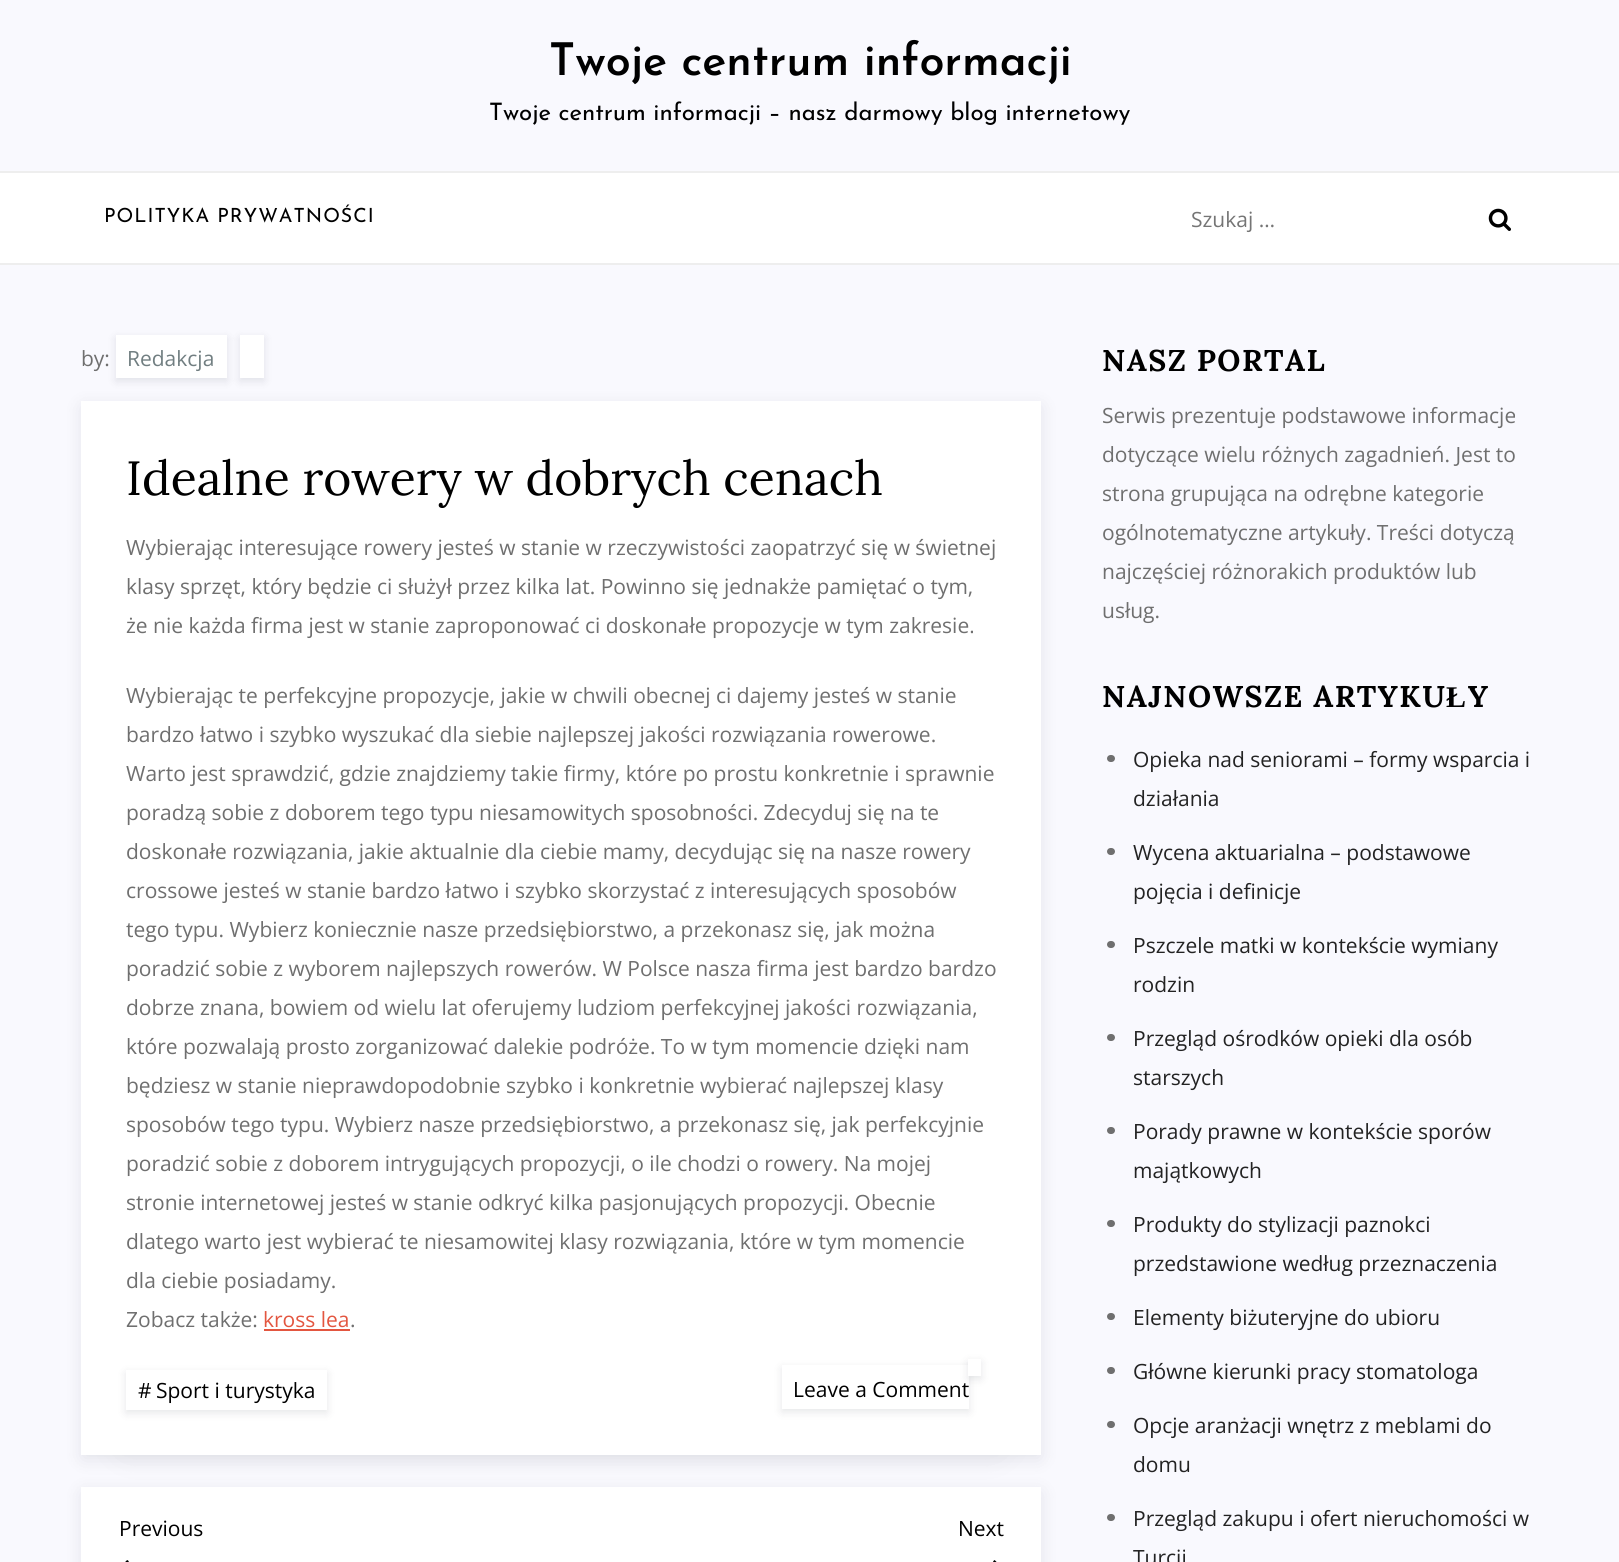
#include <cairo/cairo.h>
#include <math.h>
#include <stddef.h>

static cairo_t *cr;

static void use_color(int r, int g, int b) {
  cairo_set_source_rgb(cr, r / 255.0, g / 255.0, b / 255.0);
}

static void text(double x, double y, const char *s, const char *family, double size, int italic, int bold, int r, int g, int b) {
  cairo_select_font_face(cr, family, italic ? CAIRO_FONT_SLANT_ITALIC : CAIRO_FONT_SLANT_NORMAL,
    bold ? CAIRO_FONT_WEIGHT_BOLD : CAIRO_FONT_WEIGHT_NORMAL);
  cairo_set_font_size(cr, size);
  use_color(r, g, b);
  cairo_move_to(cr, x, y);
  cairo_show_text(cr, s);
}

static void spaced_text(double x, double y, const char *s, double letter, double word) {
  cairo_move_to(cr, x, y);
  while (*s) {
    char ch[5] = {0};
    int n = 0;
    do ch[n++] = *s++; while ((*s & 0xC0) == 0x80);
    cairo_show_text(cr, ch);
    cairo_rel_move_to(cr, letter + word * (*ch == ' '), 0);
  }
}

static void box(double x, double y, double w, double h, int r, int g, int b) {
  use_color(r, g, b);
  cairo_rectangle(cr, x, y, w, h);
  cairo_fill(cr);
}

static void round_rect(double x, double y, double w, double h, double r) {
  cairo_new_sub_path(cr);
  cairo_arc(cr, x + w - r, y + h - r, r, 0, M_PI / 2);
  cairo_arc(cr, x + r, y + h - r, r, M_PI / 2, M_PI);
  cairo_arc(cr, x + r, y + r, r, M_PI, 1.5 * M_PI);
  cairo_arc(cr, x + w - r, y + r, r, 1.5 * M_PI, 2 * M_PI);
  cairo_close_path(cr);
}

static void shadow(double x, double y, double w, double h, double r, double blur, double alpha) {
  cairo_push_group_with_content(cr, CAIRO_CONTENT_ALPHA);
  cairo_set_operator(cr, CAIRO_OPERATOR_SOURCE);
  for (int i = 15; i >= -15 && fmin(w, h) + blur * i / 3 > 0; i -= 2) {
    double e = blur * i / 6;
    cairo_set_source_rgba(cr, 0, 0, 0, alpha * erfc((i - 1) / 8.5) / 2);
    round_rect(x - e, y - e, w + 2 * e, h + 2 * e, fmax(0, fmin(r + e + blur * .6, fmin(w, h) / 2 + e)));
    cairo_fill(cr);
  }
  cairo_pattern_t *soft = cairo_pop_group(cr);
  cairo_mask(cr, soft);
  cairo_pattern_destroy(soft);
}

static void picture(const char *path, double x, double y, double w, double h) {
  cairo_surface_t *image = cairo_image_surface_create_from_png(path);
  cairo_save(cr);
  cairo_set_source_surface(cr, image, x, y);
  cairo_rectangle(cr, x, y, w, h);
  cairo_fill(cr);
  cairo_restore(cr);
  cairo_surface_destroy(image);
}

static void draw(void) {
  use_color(249, 249, 254);
  cairo_paint(cr);
  box(0, 173, 1619, 90, 255, 255, 255);
  box(0, 171, 1619, 2, 238, 238, 238);
  box(0, 263, 1619, 2, 238, 238, 238);
  picture("img_01.png", 1488, 208, 23, 23);
  use_color(7, 10, 25);
  shadow(116, 338, 111, 43, 0, 4.5, 0.1);
  box(116, 335, 111, 43, 255, 255, 255);
  use_color(7, 10, 25);
  shadow(240, 338, 24, 43, 0, 4.5, 0.1);
  box(240, 335, 24, 43, 255, 255, 255);
  use_color(7, 10, 25);
  shadow(126, 479, 870, 964, 0, 20, 0.1);
  shadow(83, 407, 957, 1051, 0, 9, 0.1);
  box(81, 401, 960, 1054, 255, 255, 255);
  box(264, 1329, 86, 2, 227, 86, 64);
  cairo_save(cr);
  cairo_set_fill_rule(cr, CAIRO_FILL_RULE_EVEN_ODD);
  cairo_new_path(cr);
  cairo_move_to(cr, 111, 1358);
  cairo_line_to(cr, 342, 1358);
  cairo_line_to(cr, 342, 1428);
  cairo_line_to(cr, 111, 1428);
  cairo_close_path(cr);
  cairo_move_to(cr, 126, 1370);
  cairo_line_to(cr, 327, 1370);
  cairo_line_to(cr, 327, 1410);
  cairo_line_to(cr, 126, 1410);
  cairo_close_path(cr);
  cairo_clip(cr);
  use_color(7, 10, 25);
  shadow(126, 1373, 201, 40, 0, 4.5, 0.1);
  cairo_restore(cr);
  use_color(7, 10, 25);
  shadow(782, 1368, 187, 44, 0, 4.5, 0.1);
  box(782, 1365, 187, 44, 255, 255, 255);
  use_color(7, 10, 25);
  shadow(968, 1362, 13, 17, 0, 4.5, 0.1);
  box(968, 1359, 13, 17, 255, 255, 255);
  use_color(7, 10, 25);
  shadow(83, 1493, 957, 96, 0, 9, 0.1);
  box(81, 1487, 960, 75, 255, 255, 255);
  picture("img_02.png", 125, 1560, 4, 2);
  picture("img_03.png", 993, 1560, 4, 2);
  use_color(111, 111, 111);
  round_rect(1107, 755, 8, 7, 3.5);
  cairo_fill(cr);
  round_rect(1107, 848, 8, 7, 3.5);
  cairo_fill(cr);
  round_rect(1107, 941, 8, 7, 3.5);
  cairo_fill(cr);
  round_rect(1107, 1034, 8, 7, 3.5);
  cairo_fill(cr);
  round_rect(1107, 1127, 8, 7, 3.5);
  cairo_fill(cr);
  round_rect(1107, 1220, 8, 7, 3.5);
  cairo_fill(cr);
  round_rect(1107, 1313, 8, 7, 3.5);
  cairo_fill(cr);
  round_rect(1107, 1367, 8, 7, 3.5);
  cairo_fill(cr);
  round_rect(1107, 1421, 8, 7, 3.5);
  cairo_fill(cr);
  round_rect(1107, 1514, 8, 7, 3.5);
  cairo_fill(cr);
  text(549, 75, "Twoje centrum informacji", "Josefin Sans SemiBold", 45, 0, 0, 0, 0, 0);
  text(489, 120, "Twoje centrum informacji – nasz darmowy blog internetowy", "Josefin Sans", 24, 0, 0, 0, 0, 0);
  cairo_set_font_size(cr, 19.5);
  spaced_text(104, 222, "POLITYKA PRYWATNOŚCI", 1, 0);
  text(1191, 227, "Szukaj …", "Open Sans", 21, 0, 0, 117, 117, 117);
  text(81, 366, "by:", "Open Sans", 21, 0, 0, 111, 111, 111);
  text(127, 366, "Redakcja", "Open Sans", 21, 0, 0, 113, 126, 129);
  text(126, 495, "Idealne rowery w dobrych cenach", "Lora", 48, 0, 0, 0, 0, 0);
  text(126, 555, "Wybierając interesujące rowery jesteś w stanie w rzeczywistości zaopatrzyć się w świetnej", "Open Sans", 21, 0, 0, 111, 111, 111);
  text(126, 594, "klasy sprzęt, który będzie ci służył przez kilka lat. Powinno się jednakże pamiętać o tym,", "Open Sans", 21, 0, 0, 111, 111, 111);
  text(126, 633, "że nie każda firma jest w stanie zaproponować ci doskonałe propozycje w tym zakresie.", "Open Sans", 21, 0, 0, 111, 111, 111);
  text(126, 703, "Wybierając te perfekcyjne propozycje, jakie w chwili obecnej ci dajemy jesteś w stanie", "Open Sans", 21, 0, 0, 111, 111, 111);
  text(126, 742, "bardzo łatwo i szybko wyszukać dla siebie najlepszej jakości rozwiązania rowerowe.", "Open Sans", 21, 0, 0, 111, 111, 111);
  text(126, 781, "Warto jest sprawdzić, gdzie znajdziemy takie firmy, które po prostu konkretnie i sprawnie", "Open Sans", 21, 0, 0, 111, 111, 111);
  text(126, 820, "poradzą sobie z doborem tego typu niesamowitych sposobności. Zdecyduj się na te", "Open Sans", 21, 0, 0, 111, 111, 111);
  text(126, 859, "doskonałe rozwiązania, jakie aktualnie dla ciebie mamy, decydując się na nasze rowery", "Open Sans", 21, 0, 0, 111, 111, 111);
  text(126, 898, "crossowe jesteś w stanie bardzo łatwo i szybko skorzystać z interesujących sposobów", "Open Sans", 21, 0, 0, 111, 111, 111);
  text(126, 937, "tego typu. Wybierz koniecznie nasze przedsiębiorstwo, a przekonasz się, jak można", "Open Sans", 21, 0, 0, 111, 111, 111);
  text(126, 976, "poradzić sobie z wyborem najlepszych rowerów. W Polsce nasza firma jest bardzo bardzo", "Open Sans", 21, 0, 0, 111, 111, 111);
  text(126, 1015, "dobrze znana, bowiem od wielu lat oferujemy ludziom perfekcyjnej jakości rozwiązania,", "Open Sans", 21, 0, 0, 111, 111, 111);
  text(126, 1054, "które pozwalają prosto zorganizować dalekie podróże. To w tym momencie dzięki nam", "Open Sans", 21, 0, 0, 111, 111, 111);
  text(126, 1093, "będziesz w stanie nieprawdopodobnie szybko i konkretnie wybierać najlepszej klasy", "Open Sans", 21, 0, 0, 111, 111, 111);
  text(126, 1132, "sposobów tego typu. Wybierz nasze przedsiębiorstwo, a przekonasz się, jak perfekcyjnie", "Open Sans", 21, 0, 0, 111, 111, 111);
  text(126, 1171, "poradzić sobie z doborem intrygujących propozycji, o ile chodzi o rowery. Na mojej", "Open Sans", 21, 0, 0, 111, 111, 111);
  text(126, 1210, "stronie internetowej jesteś w stanie odkryć kilka pasjonujących propozycji. Obecnie", "Open Sans", 21, 0, 0, 111, 111, 111);
  text(126, 1249, "dlatego warto jest wybierać te niesamowitej klasy rozwiązania, które w tym momencie", "Open Sans", 21, 0, 0, 111, 111, 111);
  text(126, 1288, "dla ciebie posiadamy.", "Open Sans", 21, 0, 0, 111, 111, 111);
  text(126, 1327, "Zobacz także:", "Open Sans", 21, 0, 0, 111, 111, 111);
  text(263, 1327, "kross lea", "Open Sans", 21, 0, 0, 227, 86, 64);
  text(350, 1327, ".", "Open Sans", 21, 0, 0, 111, 111, 111);
  text(138, 1398, "#", "Open Sans", 21, 0, 0, 0, 0, 0);
  text(156, 1398, "Sport i turystyka", "Open Sans", 21, 0, 0, 0, 0, 0);
  text(793, 1397, "Leave a Comment", "Open Sans", 21, 0, 0, 0, 0, 0);
  text(119, 1536, "Previous", "Open Sans", 21, 0, 0, 0, 0, 0);
  text(958, 1536, "Next", "Open Sans", 21, 0, 0, 0, 0, 0);
  cairo_select_font_face(cr, "Lora", CAIRO_FONT_SLANT_NORMAL, CAIRO_FONT_WEIGHT_BOLD);
  cairo_set_font_size(cr, 30);
  spaced_text(1102, 371, "NASZ PORTAL", 1.5, 0);
  text(1102, 423, "Serwis prezentuje podstawowe informacje", "Open Sans", 21, 0, 0, 111, 111, 111);
  text(1102, 462, "dotyczące wielu różnych zagadnień. Jest to", "Open Sans", 21, 0, 0, 111, 111, 111);
  text(1102, 501, "strona grupująca na odrębne kategorie", "Open Sans", 21, 0, 0, 111, 111, 111);
  text(1102, 540, "ogólnotematyczne artykuły. Treści dotyczą", "Open Sans", 21, 0, 0, 111, 111, 111);
  text(1102, 579, "najczęściej różnorakich produktów lub", "Open Sans", 21, 0, 0, 111, 111, 111);
  text(1102, 618, "usług.", "Open Sans", 21, 0, 0, 111, 111, 111);
  cairo_select_font_face(cr, "Lora", CAIRO_FONT_SLANT_NORMAL, CAIRO_FONT_WEIGHT_BOLD);
  cairo_set_font_size(cr, 30);
  use_color(0, 0, 0);
  spaced_text(1102, 707, "NAJNOWSZE ARTYKU", 1.5, 0);
  cairo_select_font_face(cr, "Liberation Serif", CAIRO_FONT_SLANT_NORMAL, CAIRO_FONT_WEIGHT_BOLD);
  spaced_text(1446, 707, "Ł", 1.5, 0);
  cairo_select_font_face(cr, "Lora", CAIRO_FONT_SLANT_NORMAL, CAIRO_FONT_WEIGHT_BOLD);
  spaced_text(1468, 707, "Y", 1.5, 0);
  text(1133, 767, "Opieka nad seniorami – formy wsparcia i", "Open Sans", 21, 0, 0, 35, 35, 35);
  text(1133, 806, "działania", "Open Sans", 21, 0, 0, 35, 35, 35);
  text(1133, 860, "Wycena aktuarialna – podstawowe", "Open Sans", 21, 0, 0, 35, 35, 35);
  text(1133, 899, "pojęcia i definicje", "Open Sans", 21, 0, 0, 35, 35, 35);
  text(1133, 953, "Pszczele matki w kontekście wymiany", "Open Sans", 21, 0, 0, 35, 35, 35);
  text(1133, 992, "rodzin", "Open Sans", 21, 0, 0, 35, 35, 35);
  text(1133, 1046, "Przegląd ośrodków opieki dla osób", "Open Sans", 21, 0, 0, 35, 35, 35);
  text(1133, 1085, "starszych", "Open Sans", 21, 0, 0, 35, 35, 35);
  text(1133, 1139, "Porady prawne w kontekście sporów", "Open Sans", 21, 0, 0, 35, 35, 35);
  text(1133, 1178, "majątkowych", "Open Sans", 21, 0, 0, 35, 35, 35);
  text(1133, 1232, "Produkty do stylizacji paznokci", "Open Sans", 21, 0, 0, 35, 35, 35);
  text(1133, 1271, "przedstawione według przeznaczenia", "Open Sans", 21, 0, 0, 35, 35, 35);
  text(1133, 1325, "Elementy biżuteryjne do ubioru", "Open Sans", 21, 0, 0, 35, 35, 35);
  text(1133, 1379, "Główne kierunki pracy stomatologa", "Open Sans", 21, 0, 0, 35, 35, 35);
  text(1133, 1433, "Opcje aranżacji wnętrz z meblami do", "Open Sans", 21, 0, 0, 35, 35, 35);
  text(1133, 1472, "domu", "Open Sans", 21, 0, 0, 35, 35, 35);
  text(1133, 1526, "Przegląd zakupu i ofert nieruchomości w", "Open Sans", 21, 0, 0, 35, 35, 35);
  text(1133, 1565, "Turcji", "Open Sans", 21, 0, 0, 35, 35, 35);
}

int main(void) {
  cairo_surface_t *surface = cairo_image_surface_create(CAIRO_FORMAT_RGB24, 1619, 1562);
  cr = cairo_create(surface);
  cairo_font_options_t *options = cairo_font_options_create();
  cairo_font_options_set_hint_metrics(options, CAIRO_HINT_METRICS_OFF);
  cairo_font_options_set_hint_style(options, CAIRO_HINT_STYLE_NONE);
  cairo_set_font_options(cr, options);
  cairo_set_miter_limit(cr, 4);
  draw();
  cairo_surface_write_to_png(surface, "out.png");
  cairo_font_options_destroy(options);
  cairo_destroy(cr);
  cairo_surface_destroy(surface);
  return 0;
}
